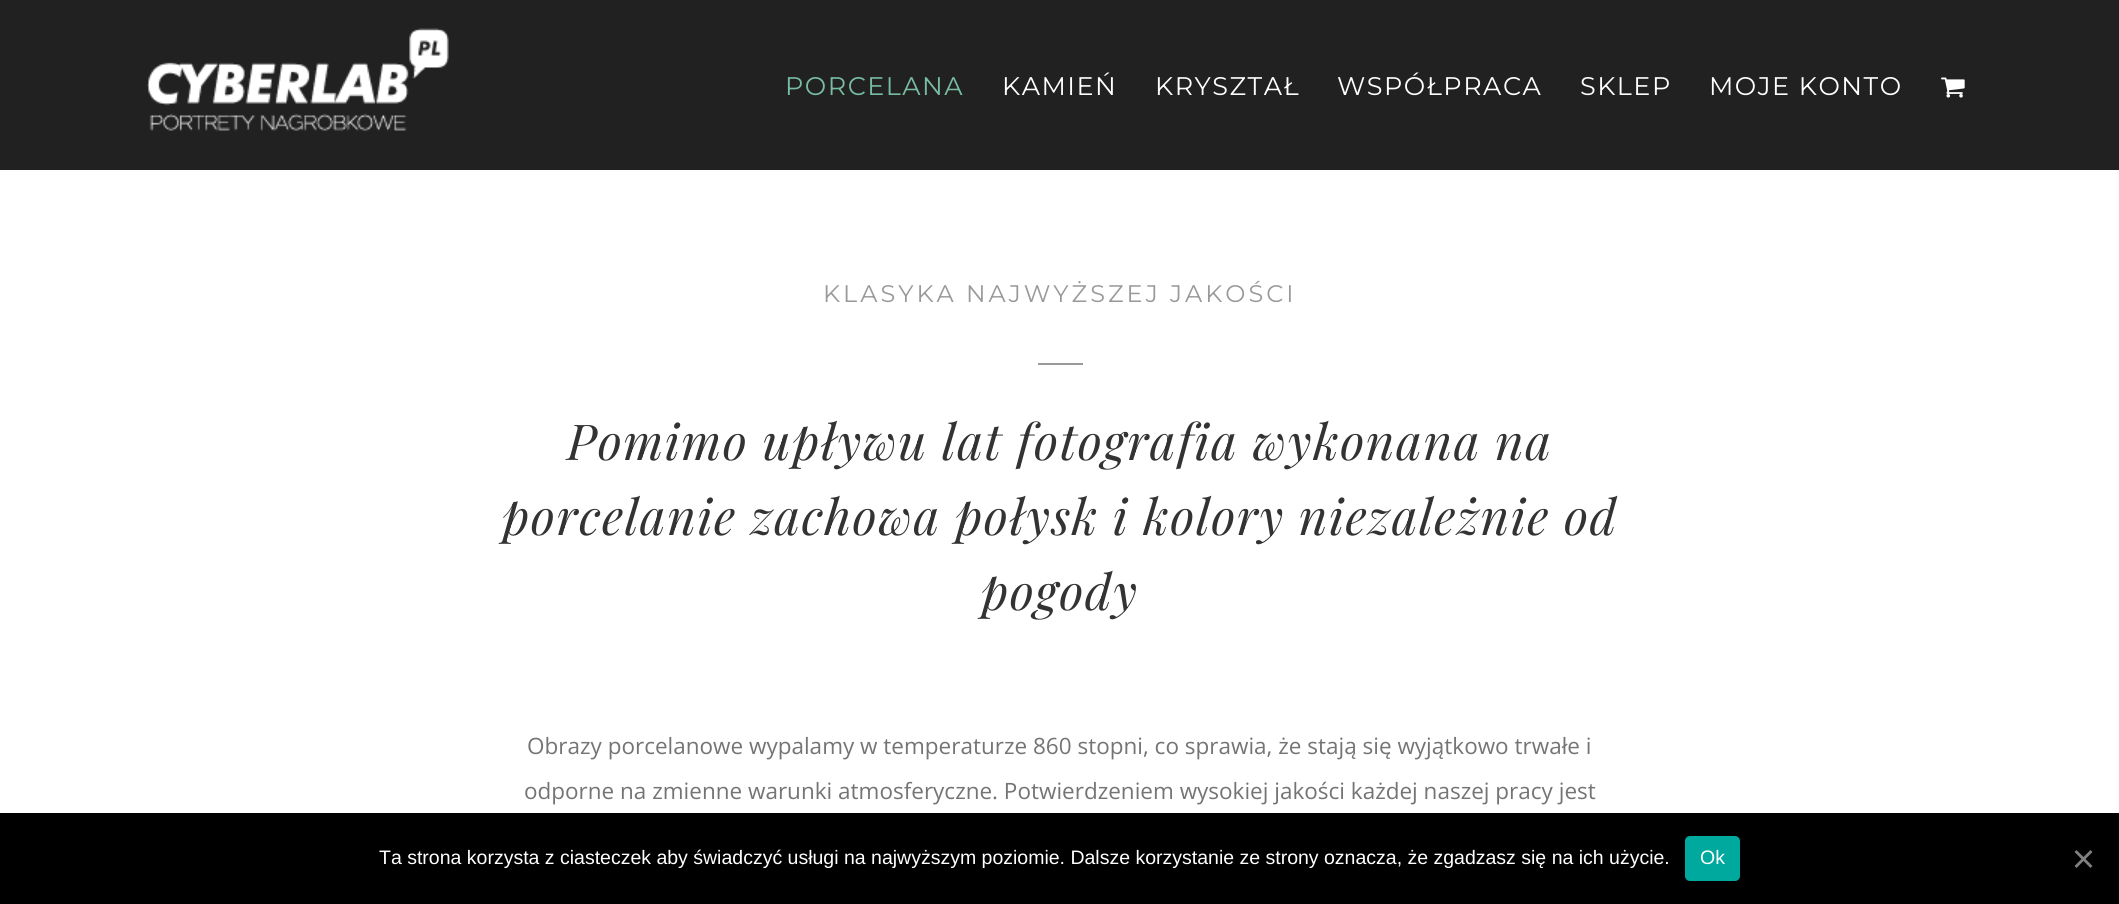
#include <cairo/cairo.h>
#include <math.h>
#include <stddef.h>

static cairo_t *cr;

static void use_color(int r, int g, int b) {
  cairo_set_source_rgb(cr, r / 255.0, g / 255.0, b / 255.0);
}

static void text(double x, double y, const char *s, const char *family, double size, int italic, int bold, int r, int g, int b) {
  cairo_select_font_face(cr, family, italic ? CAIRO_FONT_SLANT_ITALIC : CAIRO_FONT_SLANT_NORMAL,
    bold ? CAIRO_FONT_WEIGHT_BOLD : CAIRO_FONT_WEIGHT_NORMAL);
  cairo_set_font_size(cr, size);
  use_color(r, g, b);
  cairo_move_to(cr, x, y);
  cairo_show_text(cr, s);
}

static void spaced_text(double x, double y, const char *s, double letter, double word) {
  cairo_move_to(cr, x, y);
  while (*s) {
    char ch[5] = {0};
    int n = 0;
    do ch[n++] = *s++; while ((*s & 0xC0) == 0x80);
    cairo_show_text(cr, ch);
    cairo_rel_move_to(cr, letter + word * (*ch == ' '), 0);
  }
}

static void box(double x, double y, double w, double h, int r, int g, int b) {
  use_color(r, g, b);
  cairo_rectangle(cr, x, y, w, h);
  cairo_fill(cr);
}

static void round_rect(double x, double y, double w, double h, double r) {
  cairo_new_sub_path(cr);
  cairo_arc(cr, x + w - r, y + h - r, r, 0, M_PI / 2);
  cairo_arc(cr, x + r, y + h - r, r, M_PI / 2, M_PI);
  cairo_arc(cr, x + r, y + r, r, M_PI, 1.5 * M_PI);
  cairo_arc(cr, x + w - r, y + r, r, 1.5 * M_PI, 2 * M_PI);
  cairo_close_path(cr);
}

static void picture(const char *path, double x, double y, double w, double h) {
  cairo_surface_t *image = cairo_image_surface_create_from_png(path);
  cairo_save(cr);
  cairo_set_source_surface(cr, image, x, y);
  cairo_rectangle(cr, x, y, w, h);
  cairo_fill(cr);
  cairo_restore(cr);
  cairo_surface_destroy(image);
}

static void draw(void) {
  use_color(255, 255, 255);
  cairo_paint(cr);
  box(0, 0, 2119, 170, 33, 33, 33);
  picture("img_01.png", 147, 28, 302, 103);
  picture("img_02.png", 1941, 77, 24, 21);
  box(1038, 363, 45, 2, 153, 153, 153);
  box(0, 813, 2119, 91, 0, 0, 0);
  use_color(0, 169, 157);
  round_rect(1685, 836, 55, 45, 5);
  cairo_fill(cr);
  use_color(128, 128, 128);
  cairo_new_path(cr);
  cairo_move_to(cr, 2090.5, 850);
  cairo_line_to(cr, 2092.5, 852);
  cairo_line_to(cr, 2076.5, 868);
  cairo_line_to(cr, 2074.5, 866);
  cairo_close_path(cr);
  cairo_fill(cr);
  cairo_new_path(cr);
  cairo_move_to(cr, 2074.5, 852);
  cairo_line_to(cr, 2076.5, 850);
  cairo_line_to(cr, 2092.5, 866);
  cairo_line_to(cr, 2090.5, 868);
  cairo_close_path(cr);
  cairo_fill(cr);
  cairo_select_font_face(cr, "Montserrat Thin", CAIRO_FONT_SLANT_NORMAL, CAIRO_FONT_WEIGHT_NORMAL);
  cairo_set_font_size(cr, 25.5);
  use_color(120, 188, 161);
  spaced_text(785, 95, "PORCELANA", 1.5, 0);
  use_color(255, 255, 255);
  spaced_text(1002, 95, "KAMIEŃ", 1.5, 0);
  spaced_text(1155, 95, "KRYSZTAŁ", 1.5, 0);
  spaced_text(1337, 95, "WSPÓŁPRACA", 1.5, 0);
  spaced_text(1580, 95, "SKLEP", 1.5, 0);
  spaced_text(1709, 95, "MOJE KONTO", 1.5, 0);
  cairo_set_font_size(cr, 24);
  use_color(153, 153, 153);
  spaced_text(823, 302, "KLASYKA NAJWYŻSZEJ JAKOŚCI", 3, 0);
  cairo_select_font_face(cr, "Playfair Display", CAIRO_FONT_SLANT_ITALIC, CAIRO_FONT_WEIGHT_NORMAL);
  cairo_set_font_size(cr, 49.5);
  use_color(51, 51, 51);
  spaced_text(567, 460, "Pomimo upływu lat fotografia wykonana na", 1.5, 0);
  spaced_text(502, 535, "porcelanie zachowa połysk i kolory niezależnie od", 1.5, 0);
  spaced_text(981, 610, "pogody", 1.5, 0);
  text(527, 754, "Obrazy porcelanowe wypalamy w temperaturze 860 stopni, co sprawia, że stają się wyjątkowo trwałe i", "Open Sans", 22.5, 0, 0, 116, 116, 116);
  text(524, 799, "odporne na zmienne warunki atmosferyczne. Potwierdzeniem wysokiej jakości każdej naszej pracy jest", "Open Sans", 22.5, 0, 0, 116, 116, 116);
  text(379, 864, "Ta strona korzysta z ciasteczek aby świadczyć usługi na najwyższym poziomie. Dalsze korzystanie ze strony oznacza, że zgadzasz się na ich użycie.", "Liberation Sans", 19.5, 0, 0, 255, 255, 255);
  text(1700, 864, "Ok", "Liberation Sans", 19.5, 0, 0, 255, 255, 255);
}

int main(void) {
  cairo_surface_t *surface = cairo_image_surface_create(CAIRO_FORMAT_RGB24, 2119, 904);
  cr = cairo_create(surface);
  cairo_font_options_t *options = cairo_font_options_create();
  cairo_font_options_set_hint_metrics(options, CAIRO_HINT_METRICS_OFF);
  cairo_font_options_set_hint_style(options, CAIRO_HINT_STYLE_NONE);
  cairo_set_font_options(cr, options);
  cairo_set_miter_limit(cr, 4);
  draw();
  cairo_surface_write_to_png(surface, "out.png");
  cairo_font_options_destroy(options);
  cairo_destroy(cr);
  cairo_surface_destroy(surface);
  return 0;
}
